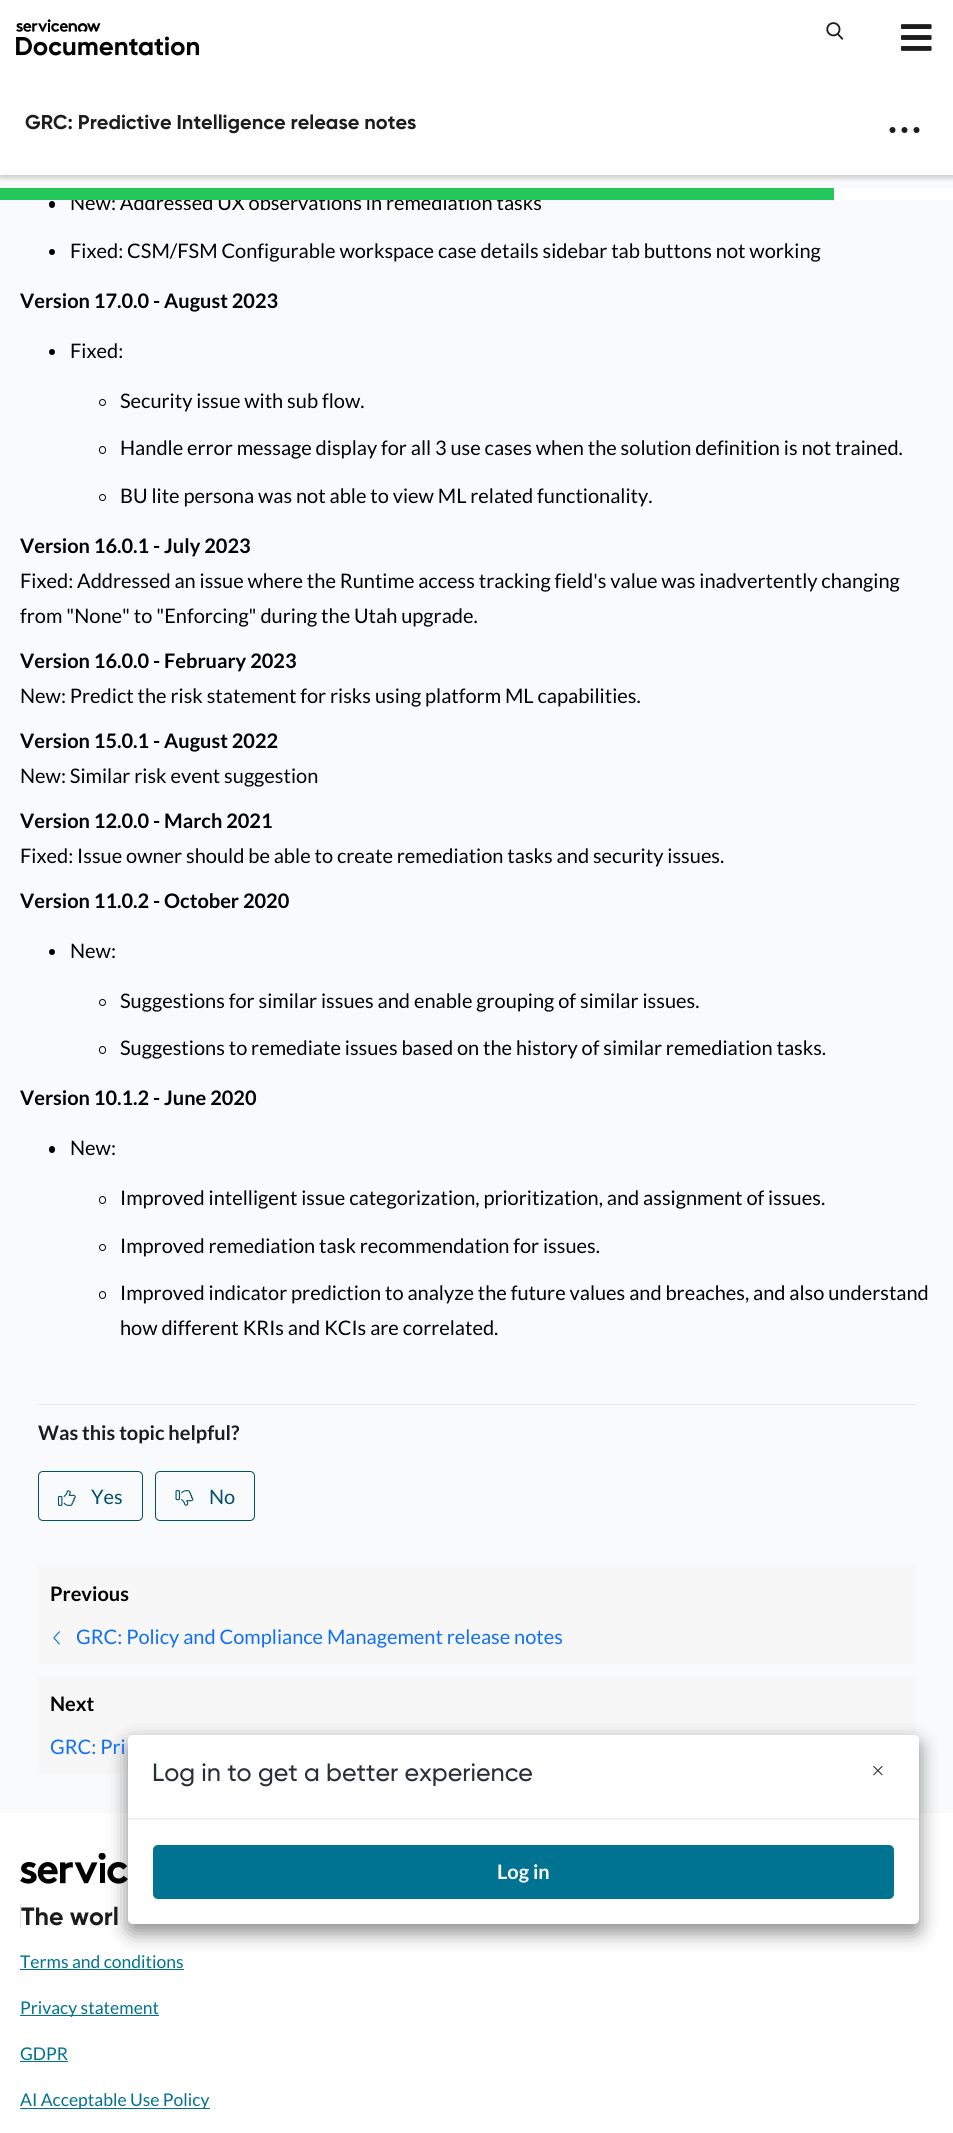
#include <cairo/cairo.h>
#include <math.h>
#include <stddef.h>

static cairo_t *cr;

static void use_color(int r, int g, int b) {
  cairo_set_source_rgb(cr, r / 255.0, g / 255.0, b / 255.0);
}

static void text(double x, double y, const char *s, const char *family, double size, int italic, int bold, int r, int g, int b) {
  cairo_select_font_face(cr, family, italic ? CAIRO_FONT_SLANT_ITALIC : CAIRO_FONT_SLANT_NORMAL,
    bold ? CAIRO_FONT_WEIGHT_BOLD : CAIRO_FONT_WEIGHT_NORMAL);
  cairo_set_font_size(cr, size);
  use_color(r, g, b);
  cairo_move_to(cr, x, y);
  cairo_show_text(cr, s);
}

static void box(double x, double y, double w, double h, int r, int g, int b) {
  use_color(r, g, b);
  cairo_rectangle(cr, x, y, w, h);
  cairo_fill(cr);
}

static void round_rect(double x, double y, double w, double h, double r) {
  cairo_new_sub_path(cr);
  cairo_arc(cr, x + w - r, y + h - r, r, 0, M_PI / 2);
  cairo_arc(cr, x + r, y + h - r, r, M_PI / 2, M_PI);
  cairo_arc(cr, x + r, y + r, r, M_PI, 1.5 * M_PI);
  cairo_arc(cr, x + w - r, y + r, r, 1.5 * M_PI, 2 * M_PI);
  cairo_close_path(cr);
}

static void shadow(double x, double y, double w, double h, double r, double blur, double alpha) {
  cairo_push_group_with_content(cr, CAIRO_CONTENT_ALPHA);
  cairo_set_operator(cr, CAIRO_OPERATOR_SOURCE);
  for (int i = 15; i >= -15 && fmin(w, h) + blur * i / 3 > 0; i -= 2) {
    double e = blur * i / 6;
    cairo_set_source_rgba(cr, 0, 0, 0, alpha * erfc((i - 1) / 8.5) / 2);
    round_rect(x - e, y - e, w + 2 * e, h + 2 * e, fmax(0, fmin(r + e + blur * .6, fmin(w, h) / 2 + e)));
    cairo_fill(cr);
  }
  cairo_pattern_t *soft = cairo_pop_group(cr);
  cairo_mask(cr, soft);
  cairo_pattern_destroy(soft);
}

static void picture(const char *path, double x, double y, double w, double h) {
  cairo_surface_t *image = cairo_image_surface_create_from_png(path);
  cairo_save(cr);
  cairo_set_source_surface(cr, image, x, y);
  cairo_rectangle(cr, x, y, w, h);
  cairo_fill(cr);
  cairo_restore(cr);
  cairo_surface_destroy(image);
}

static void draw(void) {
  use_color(255, 255, 255);
  cairo_paint(cr);
  box(0, 175, 953, 1638, 248, 250, 252);
  use_color(0, 0, 0);
  shadow(0, 78, 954, 100, 0, 2.5, 0.2);
  box(1, 74, 952, 1, 255, 255, 255);
  picture("img_01.png", 16, 19, 184, 37);
  picture("img_02.png", 826, 22, 18, 18);
  picture("img_03.png", 900, 24, 32, 27);
  box(0, 75, 953, 100, 255, 255, 255);
  use_color(29, 29, 29);
  cairo_arc(cr, 892.5, 130, 3, 0, 2 * M_PI);
  cairo_fill(cr);
  cairo_arc(cr, 904.5, 130, 3, 0, 2 * M_PI);
  cairo_fill(cr);
  cairo_arc(cr, 916.5, 130, 3, 0, 2 * M_PI);
  cairo_fill(cr);
  box(834, 188, 119, 12, 255, 255, 255);
  use_color(0, 0, 0);
  round_rect(49, 201, 6, 7, 3);
  cairo_fill(cr);
  cairo_arc(cr, 52, 252, 3, 0, 2 * M_PI);
  cairo_fill(cr);
  cairo_arc(cr, 52, 352, 3, 0, 2 * M_PI);
  cairo_fill(cr);
  cairo_arc(cr, 102.5, 402.5, 3, 0, 2 * M_PI);
  cairo_set_line_width(cr, 1);
  cairo_stroke(cr);
  round_rect(99.5, 446.5, 6, 7, 3);
  cairo_stroke(cr);
  cairo_arc(cr, 102.5, 497.5, 3, 0, 2 * M_PI);
  cairo_stroke(cr);
  cairo_arc(cr, 52, 952, 3, 0, 2 * M_PI);
  cairo_fill(cr);
  cairo_arc(cr, 102.5, 1002.5, 3, 0, 2 * M_PI);
  cairo_stroke(cr);
  round_rect(99.5, 1046.5, 6, 7, 3);
  cairo_stroke(cr);
  round_rect(49, 1146, 6, 7, 3);
  cairo_fill(cr);
  round_rect(99.5, 1196.5, 6, 7, 3);
  cairo_stroke(cr);
  cairo_arc(cr, 102.5, 1247.5, 3, 0, 2 * M_PI);
  cairo_stroke(cr);
  round_rect(99.5, 1291.5, 6, 7, 3);
  cairo_stroke(cr);
  box(38, 1404, 878, 1, 232, 232, 232);
  round_rect(38.5, 1471.5, 104, 49, 4.5);
  use_color(2, 80, 107);
  cairo_stroke(cr);
  picture("img_04.png", 58, 1490, 18, 16);
  round_rect(155.5, 1471.5, 99, 49, 4.5);
  cairo_stroke(cr);
  picture("img_05.png", 175, 1490, 19, 16);
  box(38, 1566, 878, 98, 247, 247, 247);
  picture("img_06.png", 53, 1631, 7, 14);
  box(38, 1676, 878, 98, 247, 247, 247);
  picture("img_08.png", 20, 1853, 108, 31);
  use_color(0, 0, 0);
  shadow(128, 1741, 791, 189, 5, 9.5, 0.25);
  shadow(128, 1745, 791, 189, 5, 10, 0.27);
  use_color(255, 255, 255);
  round_rect(128, 1735, 791, 189, 5);
  cairo_fill(cr);
  cairo_new_path(cr);
  cairo_move_to(cr, 133, 1735);
  cairo_line_to(cr, 914, 1735);
  cairo_curve_to(cr, 917, 1735, 919, 1737, 919, 1740);
  cairo_line_to(cr, 919, 1819);
  cairo_line_to(cr, 128, 1819);
  cairo_line_to(cr, 128, 1740);
  cairo_curve_to(cr, 128, 1737, 130, 1735, 133, 1735);
  cairo_close_path(cr);
  cairo_fill(cr);
  box(128, 1818, 791, 2, 241, 241, 241);
  picture("img_07.png", 873, 1765, 10, 11);
  use_color(0, 115, 147);
  round_rect(153, 1845, 741, 54, 5);
  cairo_fill(cr);
  box(20, 1904, 1, 24, 225, 225, 225);
  box(20, 1969, 164, 1, 0, 113, 143);
  box(20, 2015, 139, 1, 0, 113, 143);
  box(20, 2061, 48, 1, 0, 113, 143);
  box(20, 2108, 190, 1, 0, 113, 143);
  text(25, 129, "GRC: Predictive Intelligence release notes", "Gilroy", 20, 0, 1, 29, 29, 29);
  text(70, 210, "New: Addressed UX observations in remediation tasks", "Lato", 20, 0, 0, 0, 0, 0);
  box(0, 188, 834, 12, 37, 199, 93);
  text(70, 258, "Fixed: CSM/FSM Configurable workspace case details sidebar tab buttons not working", "Lato", 20, 0, 0, 0, 0, 0);
  text(20, 308, "Version 17.0.0 - August 2023", "Lato", 20, 0, 1, 0, 0, 0);
  text(70, 358, "Fixed:", "Lato", 20, 0, 0, 0, 0, 0);
  text(120, 408, "Security issue with sub flow.", "Lato", 20, 0, 0, 0, 0, 0);
  text(120, 455, "Handle error message display for all 3 use cases when the solution definition is not trained.", "Lato", 20, 0, 0, 0, 0, 0);
  text(120, 503, "BU lite persona was not able to view ML related functionality.", "Lato", 20, 0, 0, 0, 0, 0);
  text(20, 553, "Version 16.0.1 - July 2023", "Lato", 20, 0, 1, 0, 0, 0);
  text(20, 588, "Fixed: Addressed an issue where the Runtime access tracking field's value was inadvertently changing", "Lato", 20, 0, 0, 0, 0, 0);
  text(20, 623, "from \"None\" to \"Enforcing\" during the Utah upgrade.", "Lato", 20, 0, 0, 0, 0, 0);
  text(20, 668, "Version 16.0.0 - February 2023", "Lato", 20, 0, 1, 0, 0, 0);
  text(20, 703, "New: Predict the risk statement for risks using platform ML capabilities.", "Lato", 20, 0, 0, 0, 0, 0);
  text(20, 748, "Version 15.0.1 - August 2022", "Lato", 20, 0, 1, 0, 0, 0);
  text(20, 783, "New: Similar risk event suggestion", "Lato", 20, 0, 0, 0, 0, 0);
  text(20, 828, "Version 12.0.0 - March 2021", "Lato", 20, 0, 1, 0, 0, 0);
  text(20, 863, "Fixed: Issue owner should be able to create remediation tasks and security issues.", "Lato", 20, 0, 0, 0, 0, 0);
  text(20, 908, "Version 11.0.2 - October 2020", "Lato", 20, 0, 1, 0, 0, 0);
  text(70, 958, "New:", "Lato", 20, 0, 0, 0, 0, 0);
  text(120, 1008, "Suggestions for similar issues and enable grouping of similar issues.", "Lato", 20, 0, 0, 0, 0, 0);
  text(120, 1055, "Suggestions to remediate issues based on the history of similar remediation tasks.", "Lato", 20, 0, 0, 0, 0, 0);
  text(20, 1105, "Version 10.1.2 - June 2020", "Lato", 20, 0, 1, 0, 0, 0);
  text(70, 1155, "New:", "Lato", 20, 0, 0, 0, 0, 0);
  text(120, 1205, "Improved intelligent issue categorization, prioritization, and assignment of issues.", "Lato", 20, 0, 0, 0, 0, 0);
  text(120, 1253, "Improved remediation task recommendation for issues.", "Lato", 20, 0, 0, 0, 0, 0);
  text(120, 1300, "Improved indicator prediction to analyze the future values and breaches, and also understand", "Lato", 20, 0, 0, 0, 0, 0);
  text(120, 1335, "how different KRIs and KCIs are correlated.", "Lato", 20, 0, 0, 0, 0, 0);
  text(38, 1440, "Was this topic helpful?", "Lato", 20, 0, 1, 29, 29, 29);
  text(91, 1504, "Yes", "Lato", 20, 0, 0, 2, 80, 107);
  text(209, 1504, "No", "Lato", 20, 0, 0, 2, 80, 107);
  text(50, 1601, "Previous", "Lato", 20, 0, 1, 0, 0, 0);
  text(76, 1644, "GRC: Policy and Compliance Management release notes", "Lato", 20, 0, 0, 16, 111, 244);
  text(50, 1711, "Next", "Lato", 20, 0, 1, 0, 0, 0);
  text(50, 1754, "GRC: Pri", "Lato", 20, 0, 0, 16, 111, 244);
  text(152, 1781, "Log in to get a better experience", "Gilroy Medium", 25, 0, 0, 40, 47, 54);
  text(497, 1879, "Log in", "Lato", 20, 0, 1, 255, 255, 255);
  text(21, 1925, "The worl", "Gilroy", 25, 0, 1, 29, 29, 29);
  text(20, 1968, "Terms and conditions", "Lato", 17.5, 0, 0, 0, 113, 143);
  text(20, 2014, "Privacy statement", "Lato", 17.5, 0, 0, 0, 113, 143);
  text(20, 2060, "GDPR", "Lato", 17.5, 0, 0, 0, 113, 143);
  text(20, 2106, "AI Acceptable Use Policy", "Lato", 17.5, 0, 0, 0, 113, 143);
}

int main(void) {
  cairo_surface_t *surface = cairo_image_surface_create(CAIRO_FORMAT_RGB24, 953, 2133);
  cr = cairo_create(surface);
  cairo_font_options_t *options = cairo_font_options_create();
  cairo_font_options_set_hint_metrics(options, CAIRO_HINT_METRICS_OFF);
  cairo_font_options_set_hint_style(options, CAIRO_HINT_STYLE_NONE);
  cairo_set_font_options(cr, options);
  cairo_set_miter_limit(cr, 4);
  draw();
  cairo_surface_write_to_png(surface, "out.png");
  cairo_font_options_destroy(options);
  cairo_destroy(cr);
  cairo_surface_destroy(surface);
  return 0;
}
